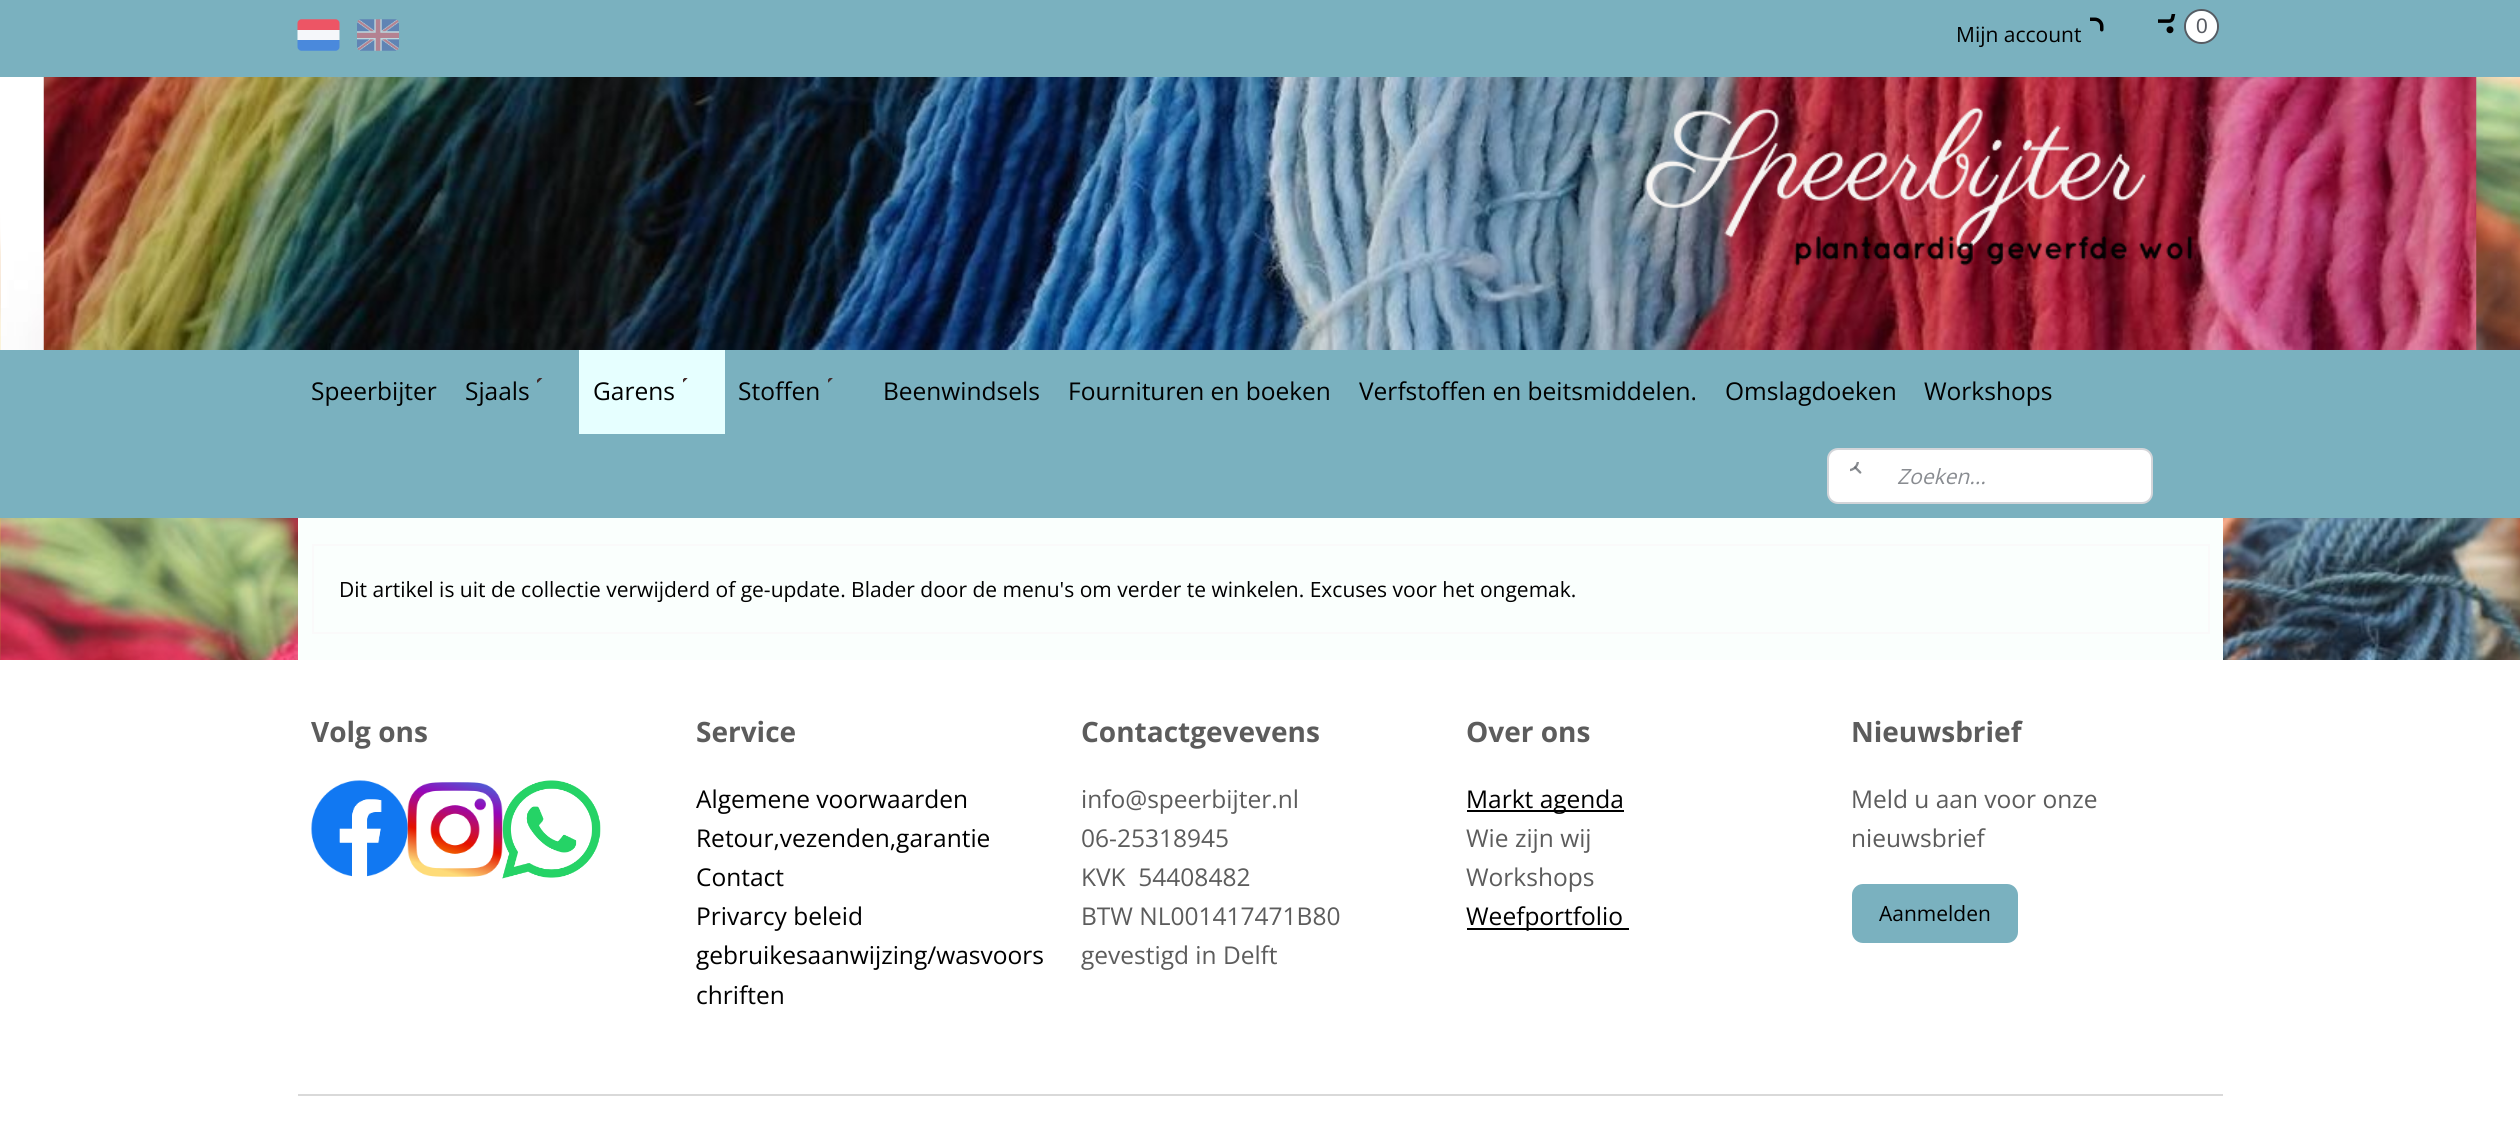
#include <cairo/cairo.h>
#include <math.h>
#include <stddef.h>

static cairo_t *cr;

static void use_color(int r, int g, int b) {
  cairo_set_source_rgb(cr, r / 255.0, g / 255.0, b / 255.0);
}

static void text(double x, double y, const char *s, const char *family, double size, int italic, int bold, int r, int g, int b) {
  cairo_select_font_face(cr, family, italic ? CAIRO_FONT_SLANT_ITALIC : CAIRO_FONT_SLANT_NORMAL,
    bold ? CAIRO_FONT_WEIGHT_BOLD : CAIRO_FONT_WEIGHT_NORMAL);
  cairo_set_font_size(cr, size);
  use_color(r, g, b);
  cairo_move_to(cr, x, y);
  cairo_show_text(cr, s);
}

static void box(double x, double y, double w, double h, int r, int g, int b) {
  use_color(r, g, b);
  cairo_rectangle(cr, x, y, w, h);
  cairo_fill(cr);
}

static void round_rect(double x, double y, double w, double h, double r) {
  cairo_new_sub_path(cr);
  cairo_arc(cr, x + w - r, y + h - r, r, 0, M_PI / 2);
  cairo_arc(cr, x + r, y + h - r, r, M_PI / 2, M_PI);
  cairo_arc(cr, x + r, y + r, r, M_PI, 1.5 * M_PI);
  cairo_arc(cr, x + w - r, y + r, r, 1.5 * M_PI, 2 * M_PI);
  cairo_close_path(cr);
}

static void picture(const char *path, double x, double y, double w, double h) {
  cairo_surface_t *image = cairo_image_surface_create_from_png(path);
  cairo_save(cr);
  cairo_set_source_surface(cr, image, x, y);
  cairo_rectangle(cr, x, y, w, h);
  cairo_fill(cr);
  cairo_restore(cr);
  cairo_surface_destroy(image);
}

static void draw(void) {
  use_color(255, 255, 255);
  cairo_paint(cr);
  box(0, 0, 2520, 77, 122, 177, 191);
  picture("img_01.png", 297, 19, 43, 32);
  picture("img_02.png", 357, 19, 42, 32);
  picture("img_03.png", 2090, 17, 14, 15);
  picture("img_04.png", 2158, 14, 18, 20);
  cairo_arc(cr, 2201.5, 26.5, 16.5, 0, 2 * M_PI);
  use_color(87, 91, 98);
  cairo_stroke(cr);
  use_color(255, 255, 255);
  cairo_arc(cr, 2201.5, 26.5, 15.5, 0, 2 * M_PI);
  cairo_fill(cr);
  picture("img_11.png", 0, 77, 2520, 583);
  picture("img_05.png", 43, 77, 2434, 273);
  picture("img_06.png", 1645, 106, 548, 162);
  box(0, 350, 2520, 168, 122, 177, 191);
  picture("img_07.png", 537, 378, 6, 5);
  box(579, 350, 146, 84, 230, 255, 255);
  picture("img_08.png", 683, 378, 5, 5);
  picture("img_09.png", 828, 378, 5, 5);
  use_color(255, 255, 255);
  round_rect(1828, 449, 324, 54, 10);
  cairo_fill_preserve(cr);
  use_color(211, 213, 217);
  cairo_stroke(cr);
  picture("img_10.png", 1850, 462, 12, 12);
  box(298, 518, 1925, 142, 250, 255, 253);
  cairo_rectangle(cr, 313, 545, 1896, 88);
  use_color(250, 250, 250);
  cairo_stroke(cr);
  picture("img_12.png", 311, 780, 97, 97);
  picture("img_13.png", 407, 782, 96, 95);
  picture("img_14.png", 502, 780, 99, 99);
  box(1467, 810, 157, 2, 0, 0, 0);
  box(1467, 928, 162, 2, 0, 0, 0);
  use_color(122, 177, 191);
  round_rect(1852, 884, 166, 59, 11);
  cairo_fill(cr);
  box(298, 1094, 1925, 2, 217, 217, 217);
  text(1956, 42, "Mijn account", "Open Sans", 21, 0, 0, 0, 0, 0);
  text(2196, 33, "0", "Liberation Sans", 21, 0, 0, 87, 91, 98);
  text(311, 400, "Speerbijter", "Open Sans", 24.5, 0, 0, 0, 0, 0);
  text(465, 400, "Sjaals", "Open Sans", 24.5, 0, 0, 0, 0, 0);
  text(593, 400, "Garens", "Open Sans", 24.5, 0, 0, 0, 0, 0);
  text(738, 400, "Stoffen", "Open Sans", 24.5, 0, 0, 0, 0, 0);
  text(883, 400, "Beenwindsels", "Open Sans", 24.5, 0, 0, 0, 0, 0);
  text(1068, 400, "Fournituren en boeken", "Open Sans", 24.5, 0, 0, 0, 0, 0);
  text(1359, 400, "Verfstoffen en beitsmiddelen.", "Open Sans", 24.5, 0, 0, 0, 0, 0);
  text(1725, 400, "Omslagdoeken", "Open Sans", 24.5, 0, 0, 0, 0, 0);
  text(1924, 400, "Workshops", "Open Sans", 24.5, 0, 0, 0, 0, 0);
  text(1897, 484, "Zoeken...", "Open Sans", 21, 1, 0, 137, 140, 145);
  text(339, 597, "Dit artikel is uit de collectie verwijderd of ge-update. Blader door de menu's om verder te winkelen. Excuses voor het ongemak.", "Open Sans", 21, 0, 0, 0, 0, 0);
  text(311, 742, "Volg ons", "Open Sans", 28, 0, 1, 92, 92, 92);
  text(696, 742, "Service", "Open Sans", 28, 0, 1, 92, 92, 92);
  text(696, 808, "Algemene voorwaarden", "Open Sans", 24.5, 0, 0, 0, 0, 0);
  text(696, 847, "Retour,vezenden,garantie", "Open Sans", 24.5, 0, 0, 0, 0, 0);
  text(696, 886, "Contact", "Open Sans", 24.5, 0, 0, 0, 0, 0);
  text(696, 925, "Privarcy beleid", "Open Sans", 24.5, 0, 0, 0, 0, 0);
  text(696, 964, "gebruikesaanwijzing/wasvoors", "Open Sans", 24.5, 0, 0, 0, 0, 0);
  text(696, 1004, "chriften", "Open Sans", 24.5, 0, 0, 0, 0, 0);
  text(1081, 742, "Contactgevevens", "Open Sans", 28, 0, 1, 92, 92, 92);
  text(1081, 808, "info@speerbijter.nl", "Open Sans", 24.5, 0, 0, 92, 92, 92);
  text(1081, 847, "06-25318945", "Open Sans", 24.5, 0, 0, 92, 92, 92);
  text(1081, 886, "KVK  54408482", "Open Sans", 24.5, 0, 0, 92, 92, 92);
  text(1081, 925, "BTW NL001417471B80", "Open Sans", 24.5, 0, 0, 92, 92, 92);
  text(1081, 964, "gevestigd in Delft", "Open Sans", 24.5, 0, 0, 92, 92, 92);
  text(1466, 742, "Over ons", "Open Sans", 28, 0, 1, 92, 92, 92);
  text(1466, 808, "Markt agenda", "Open Sans", 24.5, 0, 0, 0, 0, 0);
  text(1466, 847, "Wie zijn wij", "Open Sans", 24.5, 0, 0, 92, 92, 92);
  text(1466, 886, "Workshops", "Open Sans", 24.5, 0, 0, 92, 92, 92);
  text(1466, 925, "Weefportfolio", "Open Sans", 24.5, 0, 0, 0, 0, 0);
  text(1851, 742, "Nieuwsbrief", "Open Sans", 28, 0, 1, 92, 92, 92);
  text(1851, 808, "Meld u aan voor onze", "Open Sans", 24.5, 0, 0, 92, 92, 92);
  text(1851, 847, "nieuwsbrief", "Open Sans", 24.5, 0, 0, 92, 92, 92);
  text(1879, 921, "Aanmelden", "Open Sans", 21, 0, 0, 0, 0, 0);
}

int main(void) {
  cairo_surface_t *surface = cairo_image_surface_create(CAIRO_FORMAT_RGB24, 2520, 1123);
  cr = cairo_create(surface);
  cairo_font_options_t *options = cairo_font_options_create();
  cairo_font_options_set_hint_metrics(options, CAIRO_HINT_METRICS_OFF);
  cairo_font_options_set_hint_style(options, CAIRO_HINT_STYLE_NONE);
  cairo_set_font_options(cr, options);
  cairo_set_miter_limit(cr, 4);
  draw();
  cairo_surface_write_to_png(surface, "out.png");
  cairo_font_options_destroy(options);
  cairo_destroy(cr);
  cairo_surface_destroy(surface);
  return 0;
}
